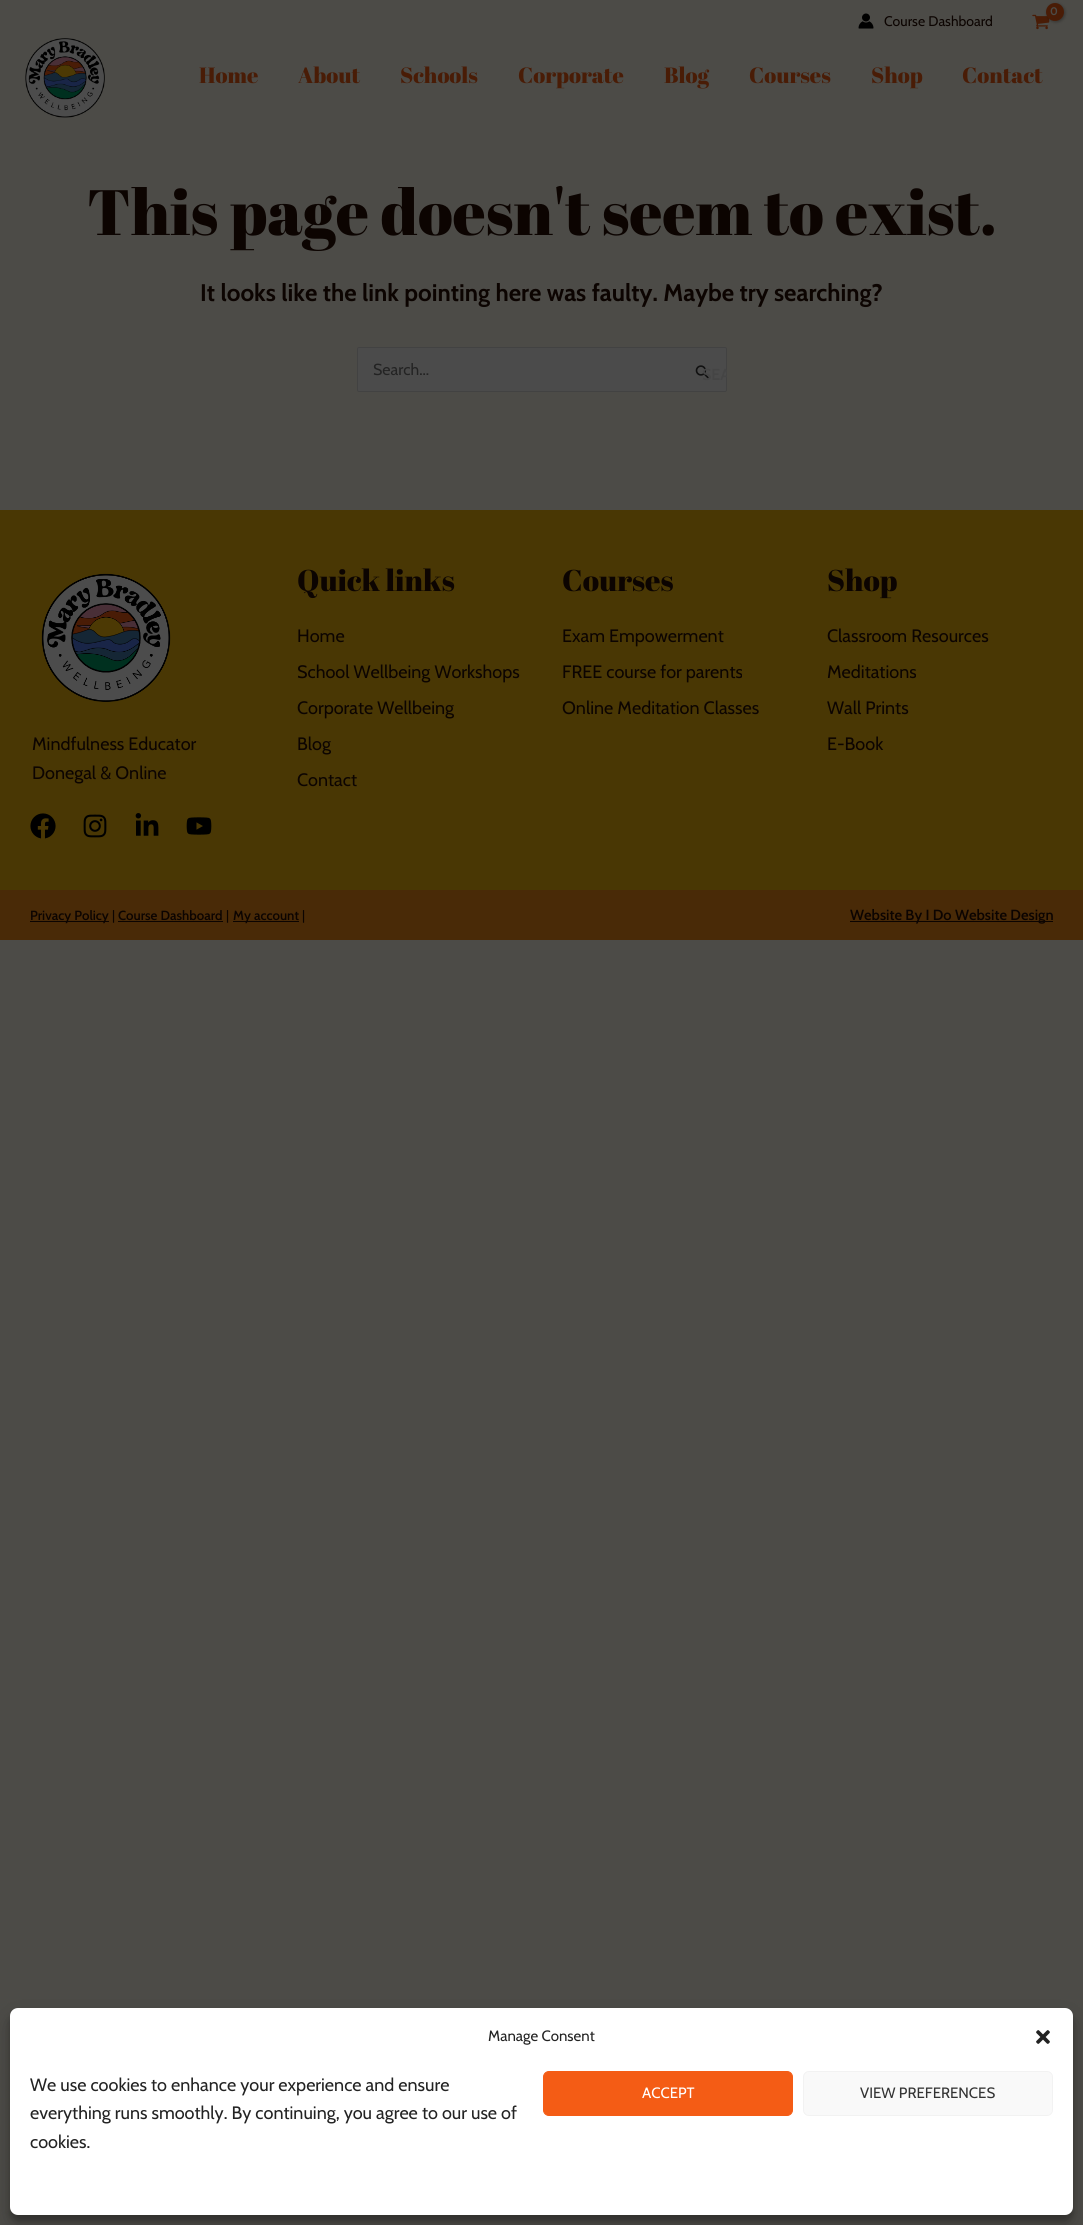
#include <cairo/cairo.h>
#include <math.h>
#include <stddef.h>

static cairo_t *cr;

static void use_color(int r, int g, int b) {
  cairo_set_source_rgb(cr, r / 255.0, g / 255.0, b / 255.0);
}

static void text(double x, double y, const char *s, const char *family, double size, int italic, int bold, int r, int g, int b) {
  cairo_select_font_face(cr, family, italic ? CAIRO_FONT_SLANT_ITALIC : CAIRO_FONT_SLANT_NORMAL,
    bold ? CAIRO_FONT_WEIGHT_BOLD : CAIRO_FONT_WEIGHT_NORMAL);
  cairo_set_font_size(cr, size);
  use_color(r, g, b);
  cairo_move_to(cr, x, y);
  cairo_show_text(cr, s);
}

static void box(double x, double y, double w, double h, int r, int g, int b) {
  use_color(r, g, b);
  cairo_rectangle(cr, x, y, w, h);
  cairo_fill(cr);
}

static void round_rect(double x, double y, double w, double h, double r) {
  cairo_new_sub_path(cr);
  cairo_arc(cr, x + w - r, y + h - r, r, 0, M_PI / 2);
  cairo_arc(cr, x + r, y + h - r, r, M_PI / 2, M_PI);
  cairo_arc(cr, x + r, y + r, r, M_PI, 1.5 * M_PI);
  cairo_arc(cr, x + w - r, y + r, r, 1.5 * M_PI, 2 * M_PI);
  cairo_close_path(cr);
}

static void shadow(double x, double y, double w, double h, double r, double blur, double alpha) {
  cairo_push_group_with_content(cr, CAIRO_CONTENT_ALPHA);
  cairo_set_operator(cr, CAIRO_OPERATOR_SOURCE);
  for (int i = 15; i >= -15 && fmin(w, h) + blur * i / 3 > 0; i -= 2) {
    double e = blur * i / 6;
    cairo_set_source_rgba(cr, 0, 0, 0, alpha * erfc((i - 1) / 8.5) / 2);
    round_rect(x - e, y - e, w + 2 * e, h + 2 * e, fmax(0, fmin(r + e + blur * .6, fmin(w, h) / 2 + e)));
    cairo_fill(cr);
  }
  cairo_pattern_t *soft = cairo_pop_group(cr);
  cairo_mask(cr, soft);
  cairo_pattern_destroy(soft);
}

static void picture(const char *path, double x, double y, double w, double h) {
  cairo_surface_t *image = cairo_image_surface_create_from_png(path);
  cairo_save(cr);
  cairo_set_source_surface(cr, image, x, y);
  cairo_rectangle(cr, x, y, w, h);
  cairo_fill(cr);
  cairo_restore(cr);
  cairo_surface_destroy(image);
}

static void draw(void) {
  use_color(76, 75, 71);
  cairo_paint(cr);
  picture("img_01.png", 1032, 14, 18, 16);
  use_color(0, 0, 0);
  shadow(1047, 4, 18, 18, 9, 1.5, 0.3);
  use_color(73, 28, 6);
  cairo_arc(cr, 1055, 12, 9, 0, 2 * M_PI);
  cairo_fill(cr);
  picture("img_02.png", 858, 13, 16, 16);
  picture("img_03.png", 25, 38, 80, 80);
  use_color(75, 75, 75);
  round_rect(357.5, 347.5, 369, 44, 1.5);
  cairo_fill_preserve(cr);
  use_color(66, 66, 66);
  cairo_set_line_width(cr, 1);
  cairo_stroke(cr);
  picture("img_04.png", 695, 365, 15, 15);
  box(0, 510, 1083, 380, 73, 55, 4);
  picture("img_05.png", 41, 573, 130, 129);
  picture("img_06.png", 30, 813, 26, 26);
  picture("img_07.png", 83, 814, 24, 24);
  picture("img_08.png", 135, 813, 24, 23);
  picture("img_09.png", 186, 817, 26, 18);
  box(0, 890, 1083, 50, 73, 42, 7);
  box(30, 921, 79, 1, 12, 4, 1);
  box(118, 921, 105, 1, 12, 4, 1);
  box(233, 921, 66, 1, 12, 4, 1);
  box(850, 921, 203, 1, 12, 4, 1);
  use_color(0, 0, 0);
  shadow(10, 2014, 1063, 207, 8, 3, 0.23);
  shadow(10, 2018, 1063, 207, 8, 10, 0.19);
  use_color(255, 255, 255);
  round_rect(10, 2008, 1063, 207, 8);
  cairo_fill(cr);
  picture("img_10.png", 1036, 2030, 14, 14);
  use_color(244, 92, 21);
  round_rect(543.5, 2071.5, 249, 44, 5.5);
  cairo_fill_preserve(cr);
  cairo_stroke(cr);
  use_color(249, 249, 249);
  round_rect(803.5, 2071.5, 249, 44, 5.5);
  cairo_fill_preserve(cr);
  use_color(242, 242, 242);
  cairo_stroke(cr);
  text(1050, 15, "0", "Cabin", 11, 0, 1, 76, 75, 71);
  text(884, 26, "Course Dashboard", "Cabin", 14, 0, 0, 12, 4, 1);
  text(199, 83, "Home", "Abril Fatface", 22, 0, 0, 73, 28, 6);
  text(298, 83, "About", "Abril Fatface", 22, 0, 0, 73, 28, 6);
  text(400, 83, "Schools", "Abril Fatface", 22, 0, 0, 73, 28, 6);
  text(518, 83, "Corporate", "Abril Fatface", 22, 0, 0, 73, 28, 6);
  text(664, 83, "Blog", "Abril Fatface", 22, 0, 0, 73, 28, 6);
  text(749, 83, "Courses", "Abril Fatface", 22, 0, 0, 73, 28, 6);
  text(871, 83, "Shop", "Abril Fatface", 22, 0, 0, 73, 28, 6);
  text(962, 83, "Contact", "Abril Fatface", 22, 0, 0, 73, 28, 6);
  text(87, 235, "This page doesn't seem to exist.", "Abril Fatface", 64, 0, 0, 12, 4, 1);
  text(200, 301, "It looks like the link pointing here was faulty. Maybe try searching?", "Cabin", 24, 0, 1, 12, 4, 1);
  text(373, 375, "Search...", "Cabin", 16, 0, 0, 35, 35, 35);
  cairo_save(cr);
  round_rect(682, 347, 45, 56, 2);
  cairo_clip(cr);
  text(702, 380, "SEA", "Cabin SemiBold", 16, 0, 0, 69, 69, 69);
  cairo_restore(cr);
  text(297, 591, "Quick links", "Abril Fatface", 30, 0, 0, 12, 4, 1);
  text(297, 642, "Home", "Cabin", 18, 0, 0, 12, 4, 1);
  text(297, 678, "School Wellbeing Workshops", "Cabin", 18, 0, 0, 12, 4, 1);
  text(297, 714, "Corporate Wellbeing", "Cabin", 18, 0, 0, 12, 4, 1);
  text(297, 750, "Blog", "Cabin", 18, 0, 0, 12, 4, 1);
  text(297, 786, "Contact", "Cabin", 18, 0, 0, 12, 4, 1);
  text(562, 591, "Courses", "Abril Fatface", 30, 0, 0, 12, 4, 1);
  text(562, 642, "Exam Empowerment", "Cabin", 18, 0, 0, 12, 4, 1);
  text(562, 678, "FREE course for parents", "Cabin", 18, 0, 0, 12, 4, 1);
  text(562, 714, "Online Meditation Classes", "Cabin", 18, 0, 0, 12, 4, 1);
  text(827, 591, "Shop", "Abril Fatface", 30, 0, 0, 12, 4, 1);
  text(827, 642, "Classroom Resources", "Cabin", 18, 0, 0, 12, 4, 1);
  text(827, 678, "Meditations", "Cabin", 18, 0, 0, 12, 4, 1);
  text(827, 714, "Wall Prints", "Cabin", 18, 0, 0, 12, 4, 1);
  text(827, 750, "E-Book", "Cabin", 18, 0, 0, 12, 4, 1);
  text(32, 750, "Mindfulness Educator", "Cabin", 18, 0, 0, 12, 4, 1);
  text(32, 779, "Donegal & Online", "Cabin", 18, 0, 0, 12, 4, 1);
  text(30, 920, "Privacy Policy", "Cabin SemiBold", 13.25, 0, 0, 12, 4, 1);
  text(112, 920, "|", "Cabin", 13.25, 0, 0, 12, 4, 1);
  text(118, 920, "Course Dashboard", "Cabin SemiBold", 13.25, 0, 0, 12, 4, 1);
  text(226, 920, "|", "Cabin", 13.25, 0, 0, 12, 4, 1);
  text(233, 920, "My account", "Cabin SemiBold", 13.25, 0, 0, 12, 4, 1);
  text(302, 920, "|", "Cabin", 13.25, 0, 0, 12, 4, 1);
  text(850, 920, "Website By I Do Website Design", "Cabin SemiBold", 14.7, 0, 0, 12, 4, 1);
  text(488, 2041, "Manage Consent", "Cabin", 15, 0, 0, 35, 35, 35);
  text(30, 2091, "We use cookies to enhance your experience and ensure", "Cabin", 18, 0, 0, 35, 35, 35);
  text(30, 2119, "everything runs smoothly. By continuing, you agree to our use of", "Cabin", 18, 0, 0, 35, 35, 35);
  text(30, 2148, "cookies.", "Cabin", 18, 0, 0, 35, 35, 35);
  text(642, 2098, "ACCEPT", "Cabin", 15, 0, 0, 255, 255, 255);
  text(860, 2098, "VIEW PREFERENCES", "Cabin", 15, 0, 0, 51, 51, 51);
}

int main(void) {
  cairo_surface_t *surface = cairo_image_surface_create(CAIRO_FORMAT_RGB24, 1083, 2225);
  cr = cairo_create(surface);
  cairo_font_options_t *options = cairo_font_options_create();
  cairo_font_options_set_hint_metrics(options, CAIRO_HINT_METRICS_OFF);
  cairo_font_options_set_hint_style(options, CAIRO_HINT_STYLE_NONE);
  cairo_set_font_options(cr, options);
  cairo_set_miter_limit(cr, 4);
  draw();
  cairo_surface_write_to_png(surface, "out.png");
  cairo_font_options_destroy(options);
  cairo_destroy(cr);
  cairo_surface_destroy(surface);
  return 0;
}
